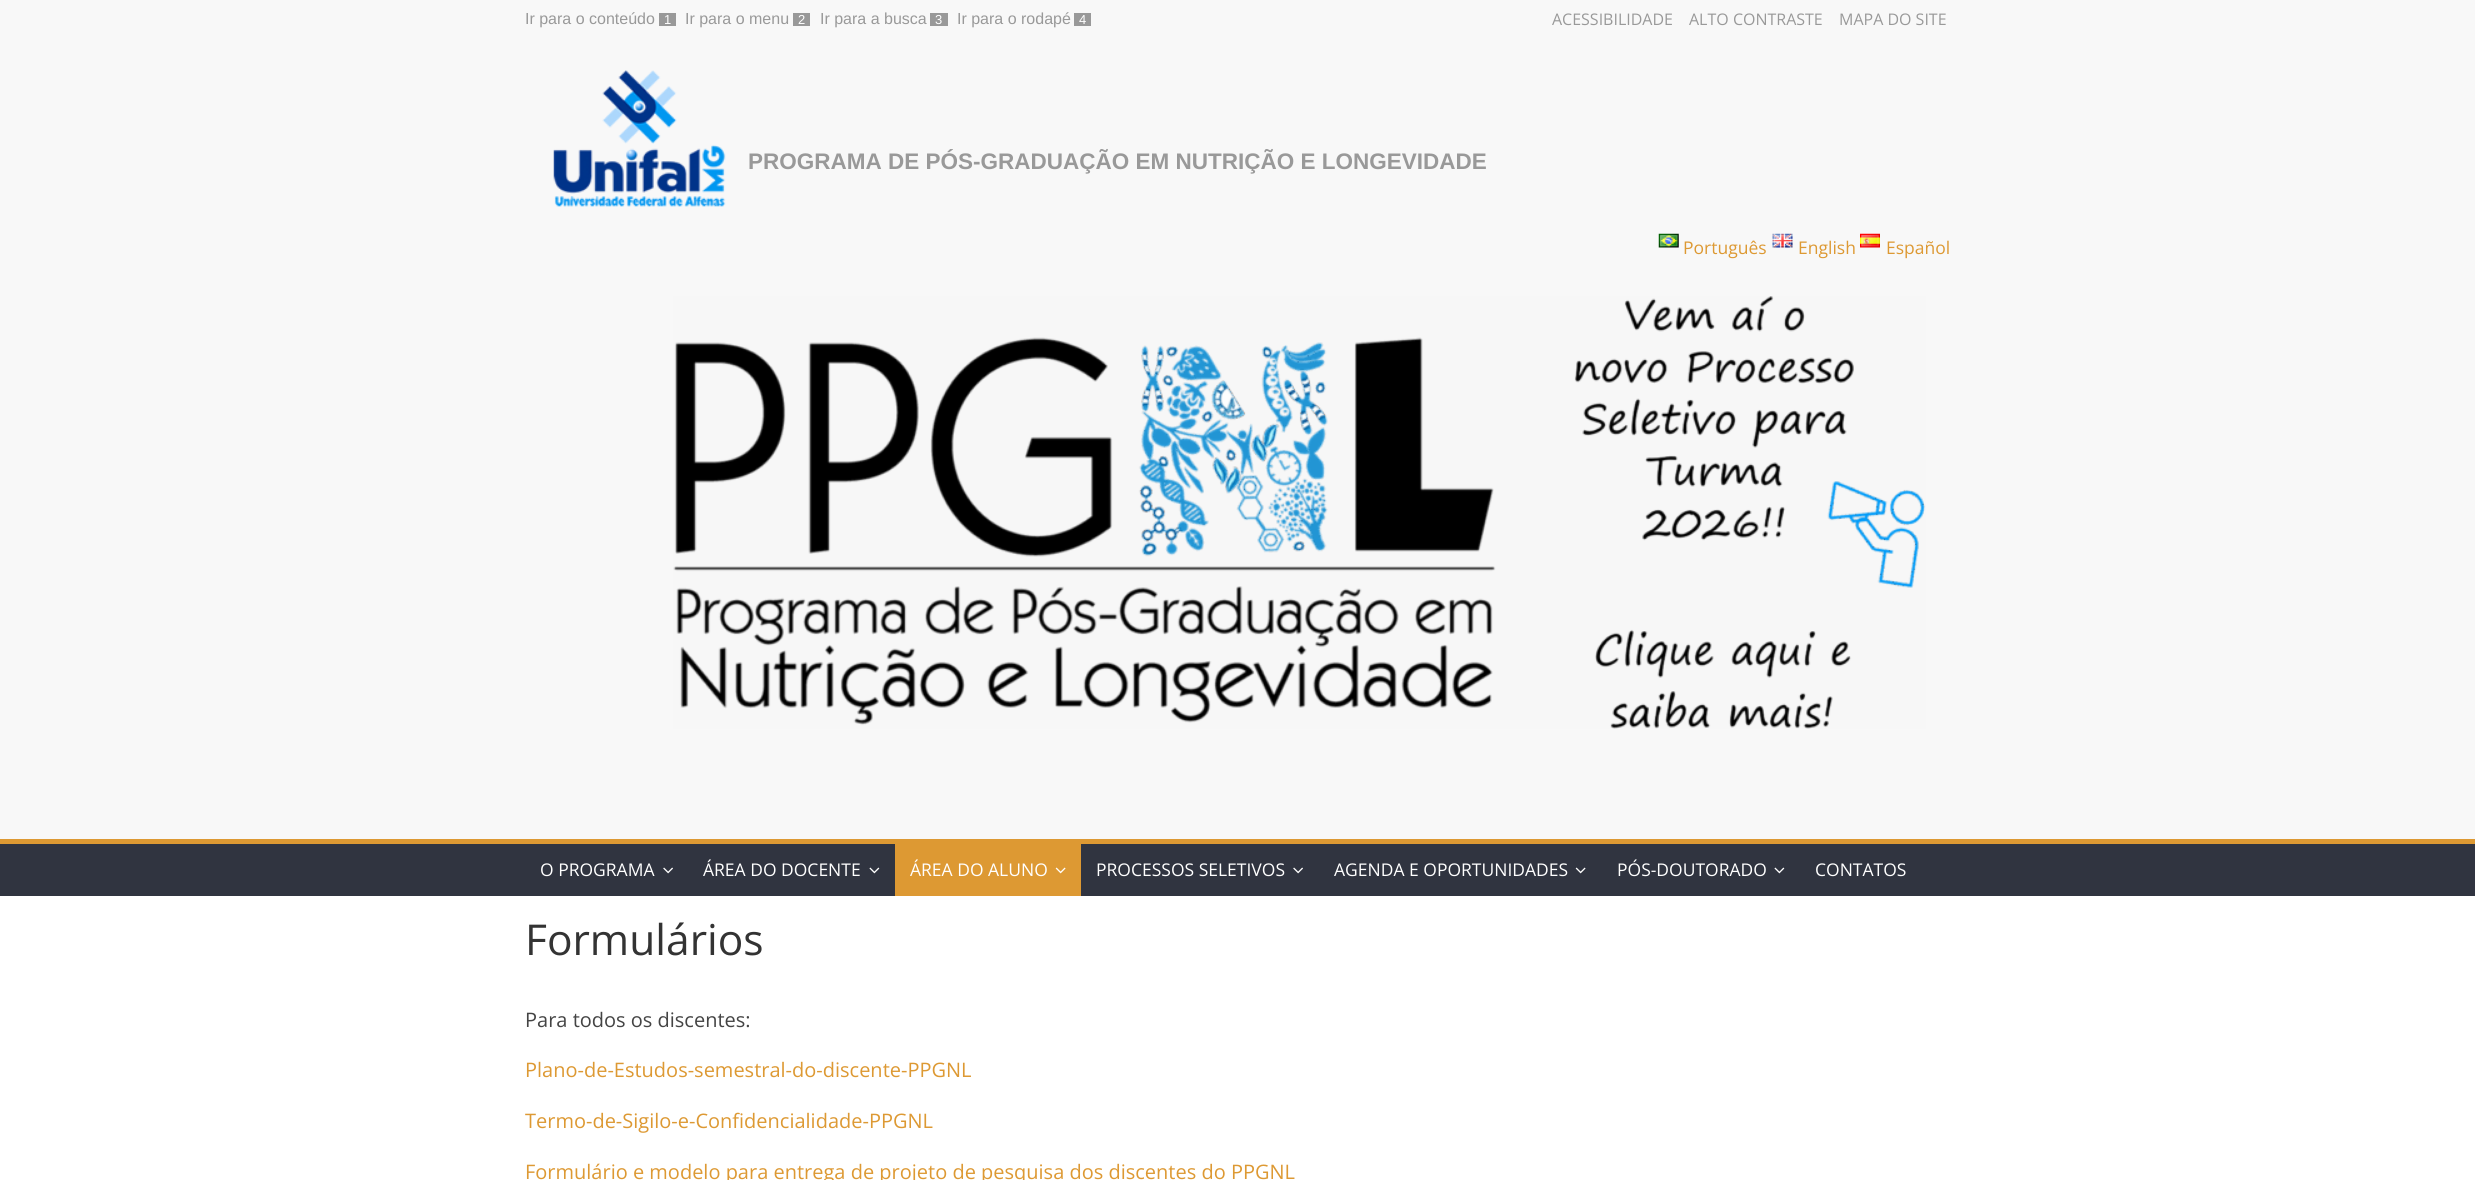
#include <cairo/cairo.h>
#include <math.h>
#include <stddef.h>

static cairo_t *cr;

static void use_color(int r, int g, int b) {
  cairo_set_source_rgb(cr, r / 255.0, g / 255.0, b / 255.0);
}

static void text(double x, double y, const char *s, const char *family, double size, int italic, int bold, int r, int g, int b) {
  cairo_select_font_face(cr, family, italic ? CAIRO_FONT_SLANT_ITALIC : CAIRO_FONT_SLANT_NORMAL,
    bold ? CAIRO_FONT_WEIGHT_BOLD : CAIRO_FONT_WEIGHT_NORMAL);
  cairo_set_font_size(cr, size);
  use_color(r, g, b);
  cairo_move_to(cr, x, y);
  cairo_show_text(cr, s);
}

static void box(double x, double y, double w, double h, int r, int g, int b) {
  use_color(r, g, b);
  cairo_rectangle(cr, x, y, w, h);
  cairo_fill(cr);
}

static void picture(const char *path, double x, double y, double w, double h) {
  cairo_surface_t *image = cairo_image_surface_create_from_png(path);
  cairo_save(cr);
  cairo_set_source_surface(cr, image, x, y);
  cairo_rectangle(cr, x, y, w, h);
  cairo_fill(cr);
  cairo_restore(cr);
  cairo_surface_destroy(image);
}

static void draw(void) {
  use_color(248, 248, 248);
  cairo_paint(cr);
  box(659, 13, 17, 13, 153, 153, 153);
  box(793, 13, 17, 13, 153, 153, 153);
  box(930, 13, 18, 13, 153, 153, 153);
  box(1074, 13, 17, 13, 153, 153, 153);
  picture("img_01.png", 553, 70, 173, 137);
  picture("img_02.png", 1658, 233, 21, 15);
  picture("img_03.png", 1772, 233, 21, 15);
  picture("img_04.png", 1860, 233, 20, 15);
  picture("img_05.png", 673, 296, 1253, 433);
  box(0, 844, 2475, 52, 48, 52, 64);
  box(0, 839, 2475, 5, 221, 153, 51);
  picture("img_06.png", 663, 867, 10, 7);
  picture("img_07.png", 869, 867, 11, 7);
  box(895, 844, 186, 52, 221, 153, 51);
  picture("img_08.png", 1055, 867, 11, 7);
  picture("img_06.png", 1293, 867, 10, 7);
  picture("img_09.png", 1575, 867, 11, 7);
  picture("img_07.png", 1774, 867, 11, 7);
  box(0, 896, 2475, 284, 255, 255, 255);
  text(525, 24, "Ir para o conteúdo", "Liberation Sans", 16, 0, 0, 153, 153, 153);
  text(664, 24, "1", "Liberation Sans", 13, 0, 0, 255, 255, 255);
  text(685, 24, "Ir para o menu", "Liberation Sans", 16, 0, 0, 153, 153, 153);
  text(798, 24, "2", "Liberation Sans", 13, 0, 0, 255, 255, 255);
  text(820, 24, "Ir para a busca", "Liberation Sans", 16, 0, 0, 153, 153, 153);
  text(935, 24, "3", "Liberation Sans", 13, 0, 0, 255, 255, 255);
  text(957, 24, "Ir para o rodapé", "Liberation Sans", 16, 0, 0, 153, 153, 153);
  text(1079, 24, "4", "Liberation Sans", 13, 0, 0, 255, 255, 255);
  text(1552, 25, "ACESSIBILIDADE", "Open Sans", 16, 0, 0, 153, 153, 153);
  text(1689, 25, "ALTO CONTRASTE", "Open Sans", 16, 0, 0, 153, 153, 153);
  text(1839, 25, "MAPA DO SITE", "Open Sans", 16, 0, 0, 153, 153, 153);
  text(748, 169, "PROGRAMA DE PÓS-GRADUAÇÃO EM NUTRIÇÃO E LONGEVIDADE", "Liberation Sans", 22.5, 0, 1, 153, 153, 153);
  text(1683, 254, "Português", "Open Sans", 17.5, 0, 0, 221, 153, 51);
  text(1798, 254, "English", "Open Sans", 17.5, 0, 0, 221, 153, 51);
  text(1886, 254, "Español", "Open Sans", 17.5, 0, 0, 221, 153, 51);
  text(540, 876, "O PROGRAMA", "Open Sans", 17.5, 0, 0, 255, 255, 255);
  text(703, 876, "ÁREA DO DOCENTE", "Open Sans", 17.5, 0, 0, 255, 255, 255);
  text(910, 876, "ÁREA DO ALUNO", "Open Sans", 17.5, 0, 0, 255, 255, 255);
  text(1096, 876, "PROCESSOS SELETIVOS", "Open Sans", 17.5, 0, 0, 255, 255, 255);
  text(1334, 876, "AGENDA E OPORTUNIDADES", "Open Sans", 17.5, 0, 0, 255, 255, 255);
  text(1617, 876, "PÓS-DOUTORADO", "Open Sans", 17.5, 0, 0, 255, 255, 255);
  text(1815, 876, "CONTATOS", "Open Sans", 17.5, 0, 0, 255, 255, 255);
  text(525, 955, "Formulários", "Open Sans", 42.5, 0, 0, 51, 51, 51);
  text(525, 1027, "Para todos os discentes:", "Open Sans", 20, 0, 0, 68, 68, 68);
  text(525, 1077, "Plano-de-Estudos-semestral-do-discente-PPGNL", "Open Sans", 20, 0, 0, 221, 153, 51);
  text(525, 1128, "Termo-de-Sigilo-e-Confidencialidade-PPGNL", "Open Sans", 20, 0, 0, 221, 153, 51);
  text(525, 1179, "Formulário e modelo para entrega de projeto de pesquisa dos discentes do PPGNL", "Open Sans", 20, 0, 0, 221, 153, 51);
}

int main(void) {
  cairo_surface_t *surface = cairo_image_surface_create(CAIRO_FORMAT_RGB24, 2475, 1180);
  cr = cairo_create(surface);
  cairo_font_options_t *options = cairo_font_options_create();
  cairo_font_options_set_hint_metrics(options, CAIRO_HINT_METRICS_OFF);
  cairo_font_options_set_hint_style(options, CAIRO_HINT_STYLE_NONE);
  cairo_set_font_options(cr, options);
  cairo_set_miter_limit(cr, 4);
  draw();
  cairo_surface_write_to_png(surface, "out.png");
  cairo_font_options_destroy(options);
  cairo_destroy(cr);
  cairo_surface_destroy(surface);
  return 0;
}
